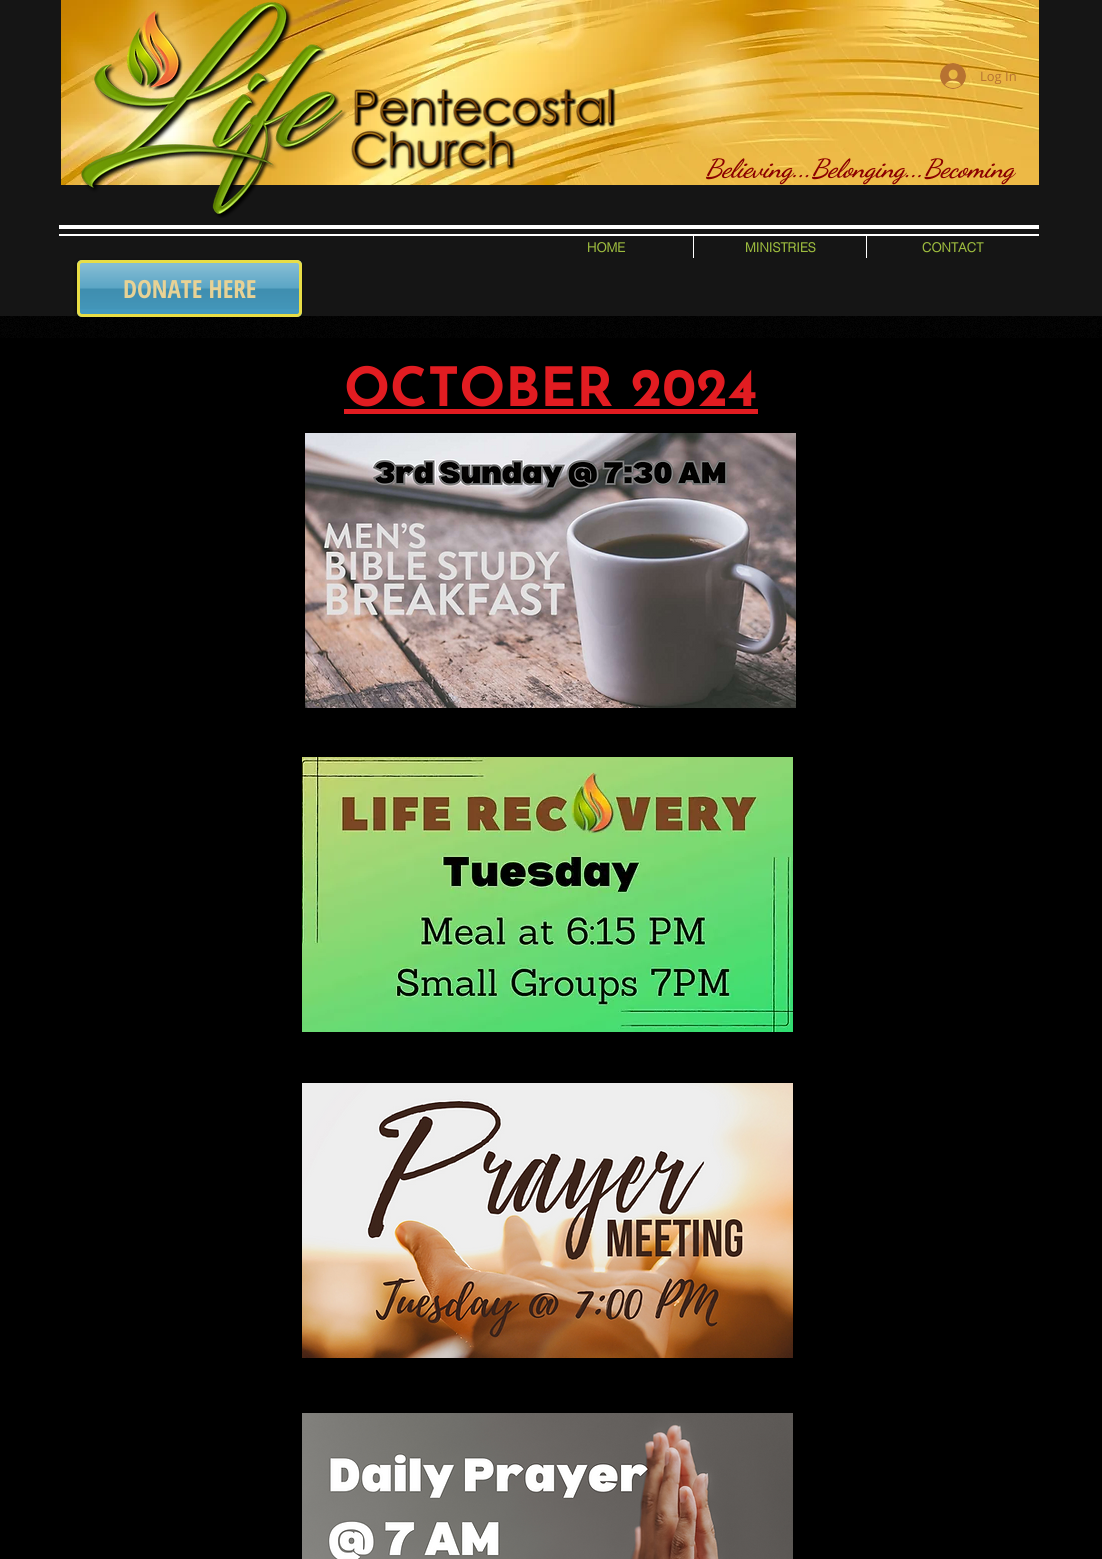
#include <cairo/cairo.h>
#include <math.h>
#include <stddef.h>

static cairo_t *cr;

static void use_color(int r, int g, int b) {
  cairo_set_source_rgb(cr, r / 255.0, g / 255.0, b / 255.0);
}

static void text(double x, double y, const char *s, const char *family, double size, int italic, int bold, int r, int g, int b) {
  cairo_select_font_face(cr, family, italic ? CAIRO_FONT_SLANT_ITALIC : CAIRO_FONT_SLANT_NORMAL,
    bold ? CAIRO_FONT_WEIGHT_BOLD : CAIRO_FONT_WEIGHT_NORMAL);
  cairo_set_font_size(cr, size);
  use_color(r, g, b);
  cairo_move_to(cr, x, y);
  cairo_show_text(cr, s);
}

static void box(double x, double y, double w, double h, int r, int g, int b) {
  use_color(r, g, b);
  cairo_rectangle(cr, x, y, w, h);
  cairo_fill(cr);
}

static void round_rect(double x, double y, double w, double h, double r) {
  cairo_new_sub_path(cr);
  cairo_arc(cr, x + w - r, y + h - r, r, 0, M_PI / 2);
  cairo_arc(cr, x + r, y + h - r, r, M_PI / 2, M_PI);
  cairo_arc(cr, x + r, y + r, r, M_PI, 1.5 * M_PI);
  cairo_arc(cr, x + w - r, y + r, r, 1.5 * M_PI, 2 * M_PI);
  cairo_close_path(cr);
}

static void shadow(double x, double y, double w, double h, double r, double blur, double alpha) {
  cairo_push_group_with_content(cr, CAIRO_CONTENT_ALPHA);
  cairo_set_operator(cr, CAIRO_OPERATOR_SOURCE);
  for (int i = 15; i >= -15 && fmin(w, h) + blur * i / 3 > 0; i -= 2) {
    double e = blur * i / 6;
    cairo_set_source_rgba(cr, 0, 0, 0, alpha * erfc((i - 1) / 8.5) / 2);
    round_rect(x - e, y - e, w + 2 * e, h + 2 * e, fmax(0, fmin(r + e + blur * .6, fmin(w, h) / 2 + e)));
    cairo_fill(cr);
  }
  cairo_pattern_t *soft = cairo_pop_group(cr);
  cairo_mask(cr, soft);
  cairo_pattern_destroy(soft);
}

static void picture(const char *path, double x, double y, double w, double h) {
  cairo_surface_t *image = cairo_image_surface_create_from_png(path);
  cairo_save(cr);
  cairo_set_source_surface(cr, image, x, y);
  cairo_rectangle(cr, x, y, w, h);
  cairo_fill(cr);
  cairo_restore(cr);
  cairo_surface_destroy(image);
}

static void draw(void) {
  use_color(0, 0, 0);
  cairo_paint(cr);
  box(0, 0, 1102, 316, 21, 21, 21);
  picture("img_01.png", 61, 0, 978, 185);
  picture("img_02.png", 79, 1, 537, 217);
  picture("img_03.png", 940, 63, 26, 26);
  box(59, 225, 980, 4, 255, 255, 255);
  box(59, 234, 980, 2, 255, 255, 255);
  box(693, 236, 1, 22, 255, 255, 255);
  box(866, 236, 1, 22, 255, 255, 255);
  picture("img_05.png", 0, 316, 1102, 22);
  use_color(0, 0, 0);
  shadow(76, 261, 225, 57, 5, 2, 0.6);
  use_color(68, 153, 189);
  round_rect(77, 260, 225, 57, 5);
  cairo_fill(cr);
  picture("img_04.png", 77, 260, 225, 49);
  round_rect(78.5, 261.5, 222, 54, 3.5);
  use_color(232, 221, 70);
  cairo_set_line_width(cr, 3);
  cairo_stroke(cr);
  box(344, 409, 414, 5, 226, 28, 33);
  picture("img_06.png", 305, 433, 491, 275);
  picture("img_07.png", 302, 757, 491, 275);
  picture("img_08.png", 302, 1083, 491, 275);
  picture("img_09.png", 302, 1413, 491, 146);
  text(980, 81, "Log In", "Open Sans", 13, 0, 0, 183, 114, 49);
  text(705, 177, "Believing...Belonging...Becoming", "Dancing Script", 26, 1, 1, 139, 0, 0);
  text(587, 252, "HOME", "helvetica", 13, 0, 1, 157, 188, 62);
  text(745, 252, "MINISTRIES", "helvetica", 13, 0, 1, 157, 188, 62);
  text(922, 252, "CONTACT", "helvetica", 13, 0, 1, 157, 188, 62);
  text(123, 298, "DONATE HERE", "Open Sans Condensed", 25, 0, 1, 231, 210, 149);
  text(344, 406, "OCTOBER 2024", "Josefin Sans Thin", 54, 0, 0, 226, 28, 33);
}

int main(void) {
  cairo_surface_t *surface = cairo_image_surface_create(CAIRO_FORMAT_RGB24, 1102, 1559);
  cr = cairo_create(surface);
  cairo_font_options_t *options = cairo_font_options_create();
  cairo_font_options_set_hint_metrics(options, CAIRO_HINT_METRICS_OFF);
  cairo_font_options_set_hint_style(options, CAIRO_HINT_STYLE_NONE);
  cairo_set_font_options(cr, options);
  cairo_set_miter_limit(cr, 4);
  draw();
  cairo_surface_write_to_png(surface, "out.png");
  cairo_font_options_destroy(options);
  cairo_destroy(cr);
  cairo_surface_destroy(surface);
  return 0;
}
